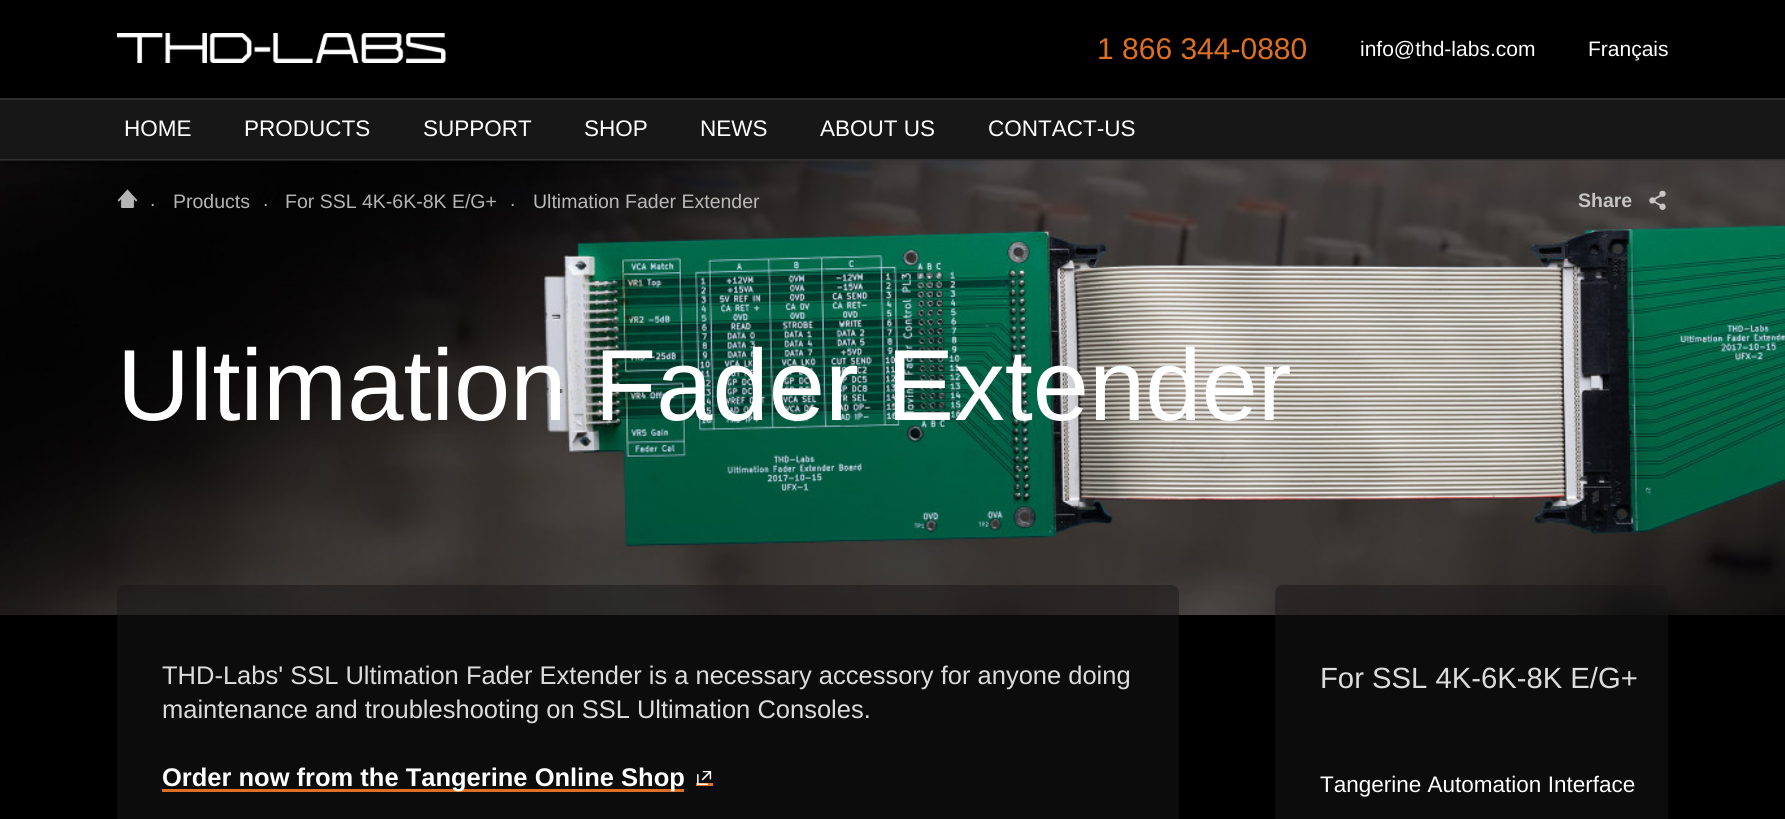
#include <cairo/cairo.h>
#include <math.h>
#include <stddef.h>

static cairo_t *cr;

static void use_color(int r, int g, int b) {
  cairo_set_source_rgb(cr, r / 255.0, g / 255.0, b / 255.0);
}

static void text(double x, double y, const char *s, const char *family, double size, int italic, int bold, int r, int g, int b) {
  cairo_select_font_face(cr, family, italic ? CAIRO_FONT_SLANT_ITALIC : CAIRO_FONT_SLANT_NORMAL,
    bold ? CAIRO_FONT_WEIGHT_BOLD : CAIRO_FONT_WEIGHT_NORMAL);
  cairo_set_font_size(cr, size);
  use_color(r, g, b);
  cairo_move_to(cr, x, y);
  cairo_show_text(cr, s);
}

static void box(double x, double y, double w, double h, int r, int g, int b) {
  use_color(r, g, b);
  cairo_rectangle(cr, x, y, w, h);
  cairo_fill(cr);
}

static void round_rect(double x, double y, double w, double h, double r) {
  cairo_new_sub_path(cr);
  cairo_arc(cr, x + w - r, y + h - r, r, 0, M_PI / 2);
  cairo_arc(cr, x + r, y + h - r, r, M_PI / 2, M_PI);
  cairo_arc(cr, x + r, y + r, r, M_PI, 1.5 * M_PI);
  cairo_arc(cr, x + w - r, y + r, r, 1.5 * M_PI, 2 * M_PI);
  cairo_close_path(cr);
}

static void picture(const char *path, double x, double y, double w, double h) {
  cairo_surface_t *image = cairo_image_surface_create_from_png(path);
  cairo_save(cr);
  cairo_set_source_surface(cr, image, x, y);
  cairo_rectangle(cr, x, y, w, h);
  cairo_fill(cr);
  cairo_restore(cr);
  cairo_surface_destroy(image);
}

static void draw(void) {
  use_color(0, 0, 0);
  cairo_paint(cr);
  picture("img_01.png", 117, 33, 329, 30);
  box(0, 100, 1785, 59, 23, 23, 23);
  box(0, 98, 1785, 2, 48, 48, 48);
  box(0, 159, 1785, 2, 48, 48, 48);
  picture("img_02.png", 0, 160, 1785, 455);
  picture("img_03.png", 117, 189, 21, 19);
  picture("img_04.png", 1649, 190, 17, 20);
  cairo_set_source_rgba(cr, 0.098, 0.098, 0.098, 0.5);
  round_rect(117, 585, 1062, 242, 8);
  cairo_fill(cr);
  box(162, 789, 522, 3, 221, 112, 34);
  box(696, 783, 17, 3, 221, 112, 34);
  picture("img_05.png", 697, 771, 15, 14);
  cairo_set_source_rgba(cr, 0.098, 0.098, 0.098, 0.5);
  round_rect(1275, 585, 393, 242, 8);
  cairo_fill(cr);
  text(1097, 59, "1 866 344-0880", "Liberation Sans", 30, 0, 0, 221, 112, 34);
  text(1360, 56, "info@thd-labs.com", "Liberation Sans", 21, 0, 0, 255, 255, 255);
  text(1588, 56, "Français", "Liberation Sans", 21, 0, 0, 255, 255, 255);
  text(124, 136, "HOME", "Liberation Sans", 22.5, 0, 0, 255, 255, 255);
  text(244, 136, "PRODUCTS", "Liberation Sans", 22.5, 0, 0, 255, 255, 255);
  text(423, 136, "SUPPORT", "Liberation Sans", 22.5, 0, 0, 255, 255, 255);
  text(584, 136, "SHOP", "Liberation Sans", 22.5, 0, 0, 255, 255, 255);
  text(700, 136, "NEWS", "Liberation Sans", 22.5, 0, 0, 255, 255, 255);
  text(820, 136, "ABOUT US", "Liberation Sans", 22.5, 0, 0, 255, 255, 255);
  text(988, 136, "CONTACT-US", "Liberation Sans", 22.5, 0, 0, 255, 255, 255);
  text(150, 206, ".", "Liberation Sans", 19.5, 0, 0, 180, 180, 180);
  text(173, 208, "Products", "Liberation Sans", 19.5, 0, 0, 180, 180, 180);
  text(263, 206, ".", "Liberation Sans", 19.5, 0, 0, 180, 180, 180);
  text(285, 208, "For SSL 4K-6K-8K E/G+", "Liberation Sans", 19.5, 0, 0, 180, 180, 180);
  text(510, 206, ".", "Liberation Sans", 19.5, 0, 0, 180, 180, 180);
  text(533, 208, "Ultimation Fader Extender", "Liberation Sans", 19.5, 0, 0, 186, 185, 186);
  text(1578, 207, "Share", "Liberation Sans", 19.5, 0, 1, 197, 196, 196);
  text(117, 420, "Ultimation Fader Extender", "Liberation Sans", 101.1, 0, 0, 255, 255, 255);
  text(162, 684, "THD-Labs' SSL Ultimation Fader Extender is a necessary accessory for anyone doing", "Liberation Sans", 25.5, 0, 0, 220, 220, 220);
  text(162, 718, "maintenance and troubleshooting on SSL Ultimation Consoles.", "Liberation Sans", 25.5, 0, 0, 220, 220, 220);
  text(162, 786, "Order now from the Tangerine Online Shop", "Liberation Sans", 25.5, 0, 1, 255, 255, 255);
  text(1320, 688, "For SSL 4K-6K-8K E/G+", "Liberation Sans", 29.25, 0, 0, 220, 220, 220);
  text(1320, 792, "Tangerine Automation Interface", "Liberation Sans", 22.5, 0, 0, 255, 255, 255);
}

int main(void) {
  cairo_surface_t *surface = cairo_image_surface_create(CAIRO_FORMAT_RGB24, 1785, 819);
  cr = cairo_create(surface);
  cairo_font_options_t *options = cairo_font_options_create();
  cairo_font_options_set_hint_metrics(options, CAIRO_HINT_METRICS_OFF);
  cairo_font_options_set_hint_style(options, CAIRO_HINT_STYLE_NONE);
  cairo_set_font_options(cr, options);
  cairo_set_miter_limit(cr, 4);
  draw();
  cairo_surface_write_to_png(surface, "out.png");
  cairo_font_options_destroy(options);
  cairo_destroy(cr);
  cairo_surface_destroy(surface);
  return 0;
}
